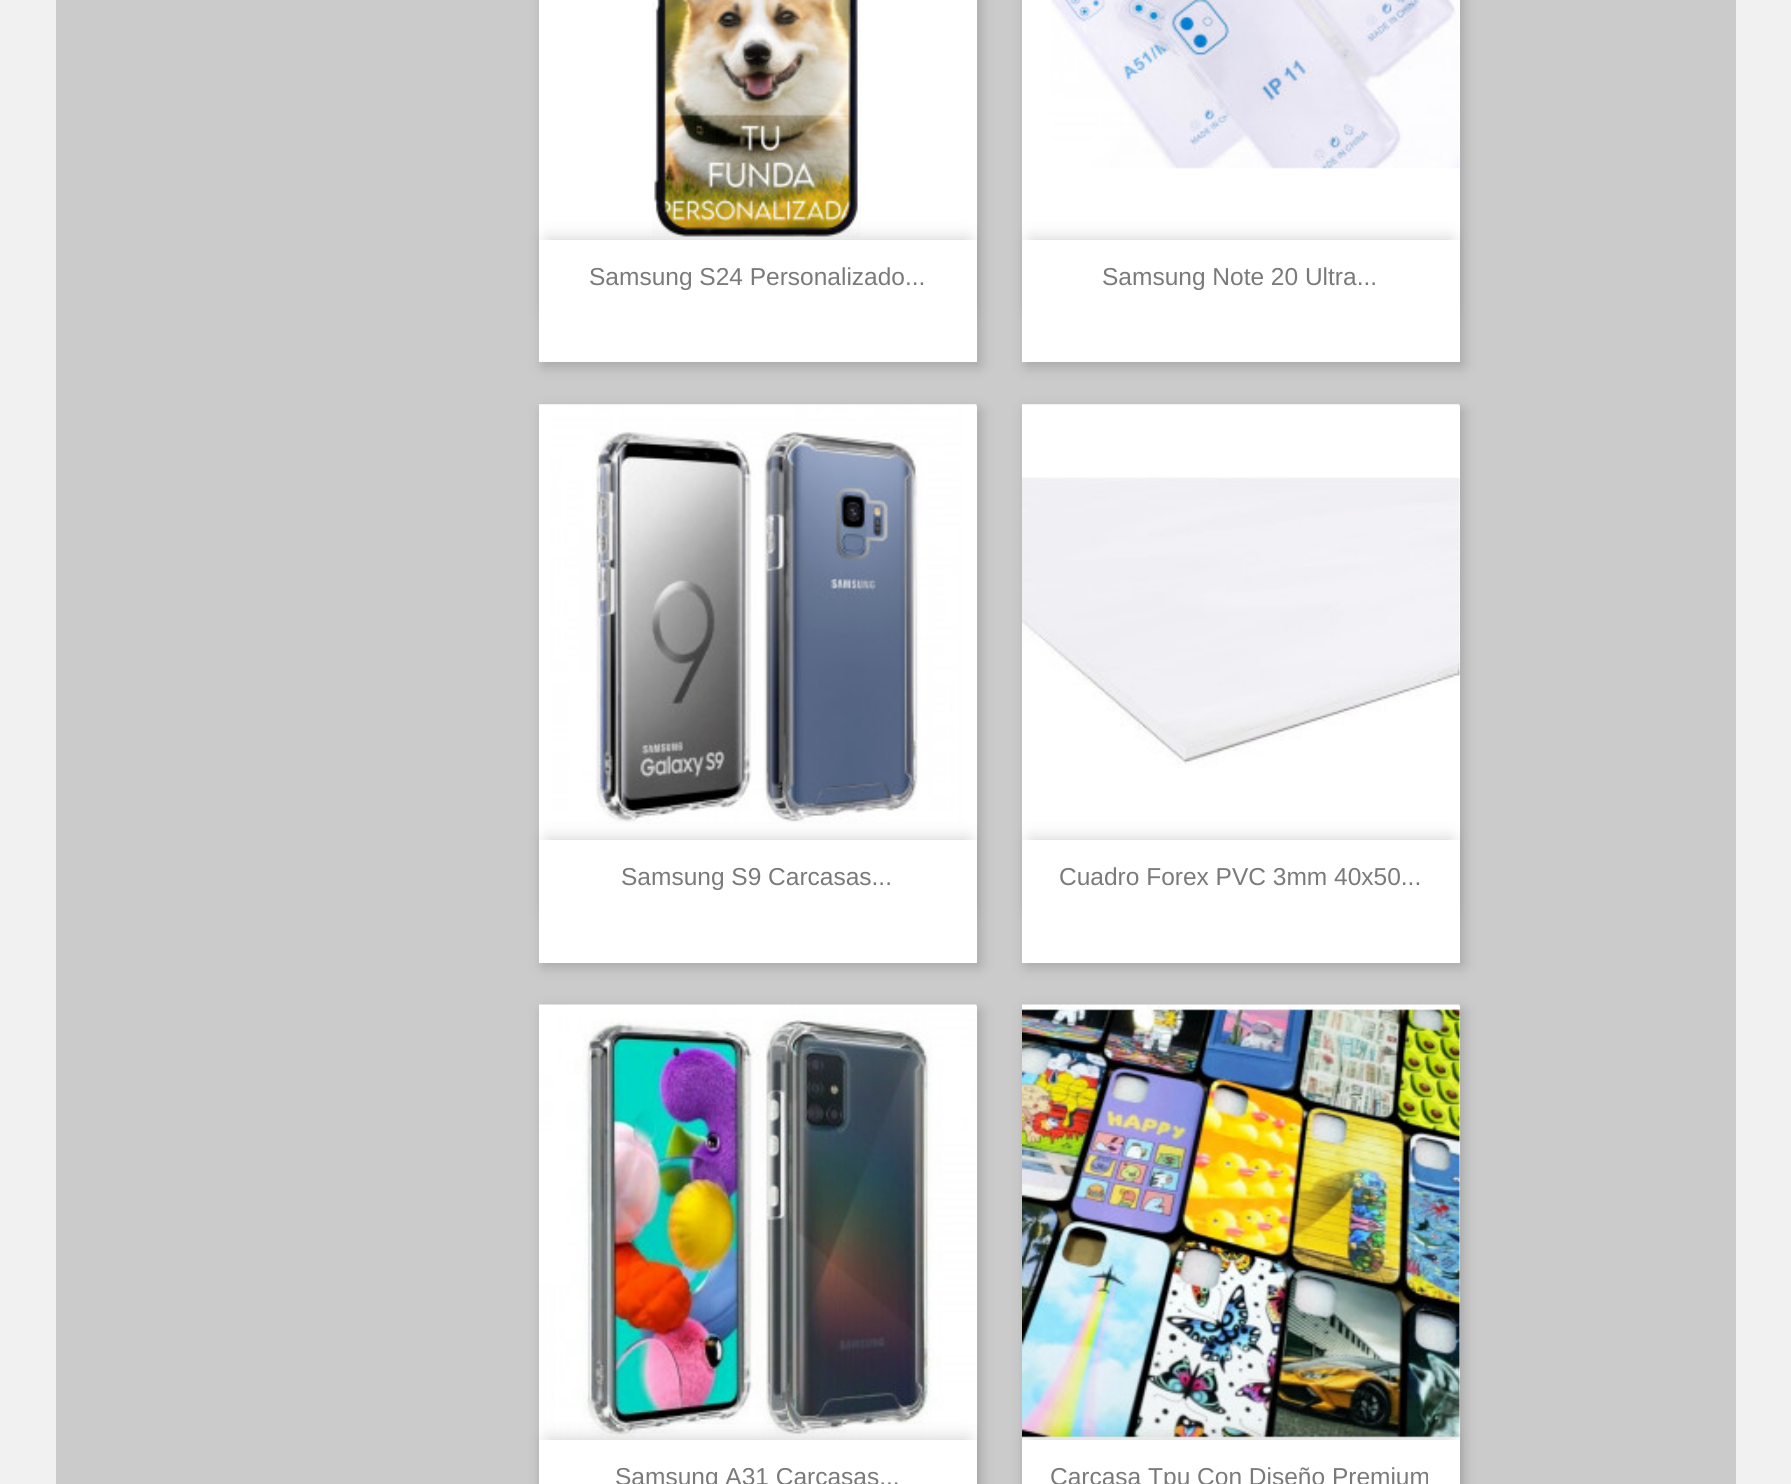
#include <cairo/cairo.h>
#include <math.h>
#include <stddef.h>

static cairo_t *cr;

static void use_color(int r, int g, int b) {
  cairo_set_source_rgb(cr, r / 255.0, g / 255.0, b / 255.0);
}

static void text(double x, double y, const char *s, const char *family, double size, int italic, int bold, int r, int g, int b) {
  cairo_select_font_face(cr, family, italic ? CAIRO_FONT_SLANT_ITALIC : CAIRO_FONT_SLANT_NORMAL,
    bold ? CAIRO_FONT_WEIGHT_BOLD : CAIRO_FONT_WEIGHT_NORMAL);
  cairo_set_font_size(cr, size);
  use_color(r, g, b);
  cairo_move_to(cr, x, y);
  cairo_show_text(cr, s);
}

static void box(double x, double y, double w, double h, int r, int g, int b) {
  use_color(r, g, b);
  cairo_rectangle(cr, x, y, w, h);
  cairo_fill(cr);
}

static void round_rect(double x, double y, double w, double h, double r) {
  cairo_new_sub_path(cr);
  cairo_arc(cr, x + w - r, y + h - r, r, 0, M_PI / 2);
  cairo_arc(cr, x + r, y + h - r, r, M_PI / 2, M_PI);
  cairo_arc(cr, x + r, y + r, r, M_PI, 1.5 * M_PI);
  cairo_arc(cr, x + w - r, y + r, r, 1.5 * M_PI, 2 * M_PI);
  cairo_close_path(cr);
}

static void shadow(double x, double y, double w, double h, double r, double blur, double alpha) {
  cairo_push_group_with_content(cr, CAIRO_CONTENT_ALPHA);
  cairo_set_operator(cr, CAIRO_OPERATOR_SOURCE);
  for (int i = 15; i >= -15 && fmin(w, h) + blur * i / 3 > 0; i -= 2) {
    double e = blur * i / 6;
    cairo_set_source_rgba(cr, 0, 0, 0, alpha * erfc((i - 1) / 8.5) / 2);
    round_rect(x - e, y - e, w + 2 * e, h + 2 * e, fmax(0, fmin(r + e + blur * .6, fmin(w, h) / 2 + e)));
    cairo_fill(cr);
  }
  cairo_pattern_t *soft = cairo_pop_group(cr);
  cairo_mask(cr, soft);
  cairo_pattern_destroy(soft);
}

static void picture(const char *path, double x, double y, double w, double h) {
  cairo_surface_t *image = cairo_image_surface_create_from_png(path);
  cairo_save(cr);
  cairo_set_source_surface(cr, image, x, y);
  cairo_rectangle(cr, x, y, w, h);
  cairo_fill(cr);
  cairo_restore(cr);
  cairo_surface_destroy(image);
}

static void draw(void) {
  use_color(241, 241, 241);
  cairo_paint(cr);
  box(56, 0, 1680, 1484, 203, 203, 203);
  use_color(0, 0, 0);
  shadow(543, -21, 437, 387, 0, 7, 0.2);
  box(539, 0, 438, 240, 255, 255, 255);
  picture("img_01.png", 652, 0, 209, 238);
  use_color(0, 0, 0);
  shadow(548, 240, 420, 70, 0, 9, 0.2);
  box(539, 240, 438, 122, 255, 255, 255);
  use_color(0, 0, 0);
  shadow(1026, -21, 437, 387, 0, 7, 0.2);
  box(1022, 0, 438, 240, 255, 255, 255);
  picture("img_02.png", 1051, 0, 409, 169);
  use_color(0, 0, 0);
  shadow(1031, 240, 420, 70, 0, 9, 0.2);
  box(1022, 240, 438, 122, 255, 255, 255);
  use_color(0, 0, 0);
  shadow(543, 410, 437, 556, 0, 7, 0.2);
  box(539, 406, 438, 434, 255, 255, 255);
  picture("img_03.png", 539, 404, 438, 420);
  use_color(0, 0, 0);
  shadow(548, 840, 420, 70, 0, 9, 0.2);
  box(539, 840, 438, 123, 255, 255, 255);
  use_color(0, 0, 0);
  shadow(1026, 410, 437, 556, 0, 7, 0.2);
  box(1022, 406, 438, 434, 255, 255, 255);
  picture("img_04.png", 1022, 404, 438, 364);
  use_color(0, 0, 0);
  shadow(1031, 840, 420, 70, 0, 9, 0.2);
  box(1022, 840, 438, 123, 255, 255, 255);
  use_color(0, 0, 0);
  shadow(543, 1010, 437, 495, 0, 7, 0.2);
  box(539, 1006, 438, 434, 255, 255, 255);
  picture("img_05.png", 539, 1004, 438, 435);
  use_color(0, 0, 0);
  shadow(548, 1440, 420, 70, 0, 9, 0.2);
  box(539, 1440, 438, 44, 255, 255, 255);
  use_color(0, 0, 0);
  shadow(1026, 1010, 437, 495, 0, 7, 0.2);
  box(1022, 1006, 438, 434, 255, 255, 255);
  picture("img_06.png", 1022, 1004, 438, 435);
  use_color(0, 0, 0);
  shadow(1031, 1440, 420, 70, 0, 9, 0.2);
  box(1022, 1440, 438, 44, 255, 255, 255);
  text(589, 285, "Samsung S24 Personalizado...", "Liberation Sans", 24.5, 0, 0, 122, 122, 122);
  text(1102, 285, "Samsung Note 20 Ultra...", "Liberation Sans", 24.5, 0, 0, 122, 122, 122);
  text(621, 885, "Samsung S9 Carcasas...", "Liberation Sans", 24.5, 0, 0, 122, 122, 122);
  text(1059, 885, "Cuadro Forex PVC 3mm 40x50...", "Liberation Sans", 24.5, 0, 0, 122, 122, 122);
  text(615, 1485, "Samsung A31 Carcasas...", "Liberation Sans", 24.5, 0, 0, 122, 122, 122);
  text(1050, 1485, "Carcasa Tpu Con Diseño Premium", "Liberation Sans", 24.5, 0, 0, 122, 122, 122);
}

int main(void) {
  cairo_surface_t *surface = cairo_image_surface_create(CAIRO_FORMAT_RGB24, 1791, 1484);
  cr = cairo_create(surface);
  cairo_font_options_t *options = cairo_font_options_create();
  cairo_font_options_set_hint_metrics(options, CAIRO_HINT_METRICS_OFF);
  cairo_font_options_set_hint_style(options, CAIRO_HINT_STYLE_NONE);
  cairo_set_font_options(cr, options);
  cairo_set_miter_limit(cr, 4);
  draw();
  cairo_surface_write_to_png(surface, "out.png");
  cairo_font_options_destroy(options);
  cairo_destroy(cr);
  cairo_surface_destroy(surface);
  return 0;
}
